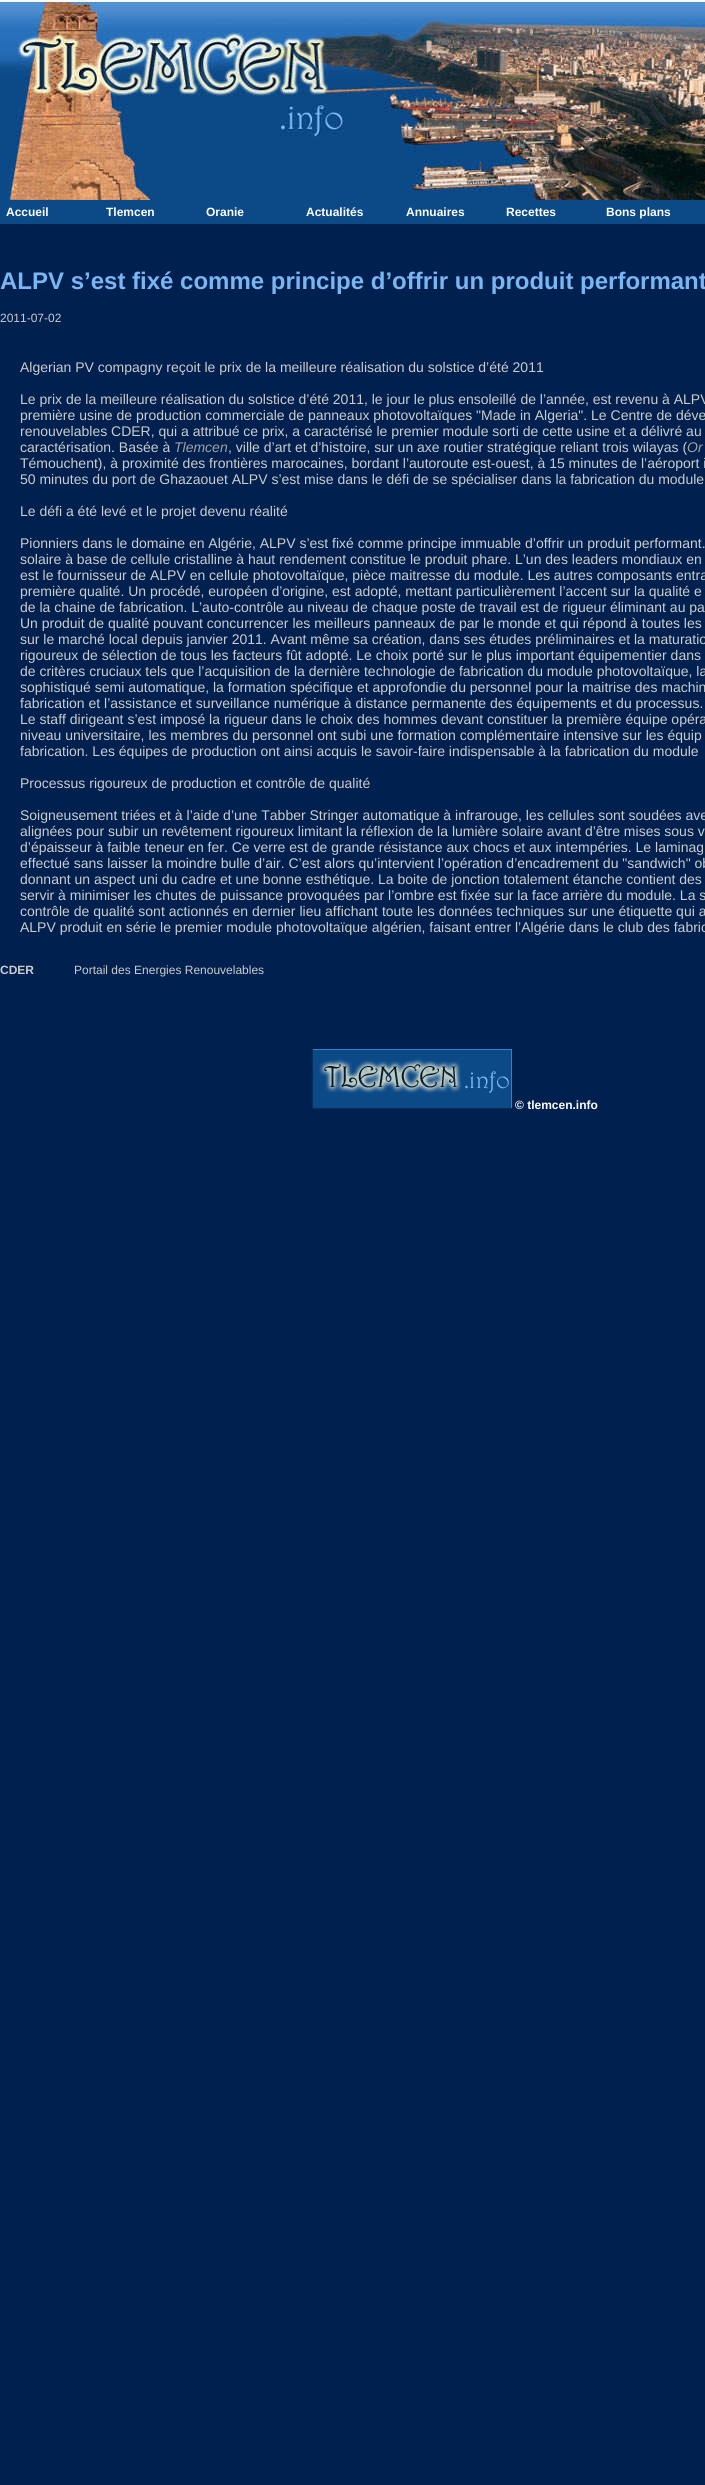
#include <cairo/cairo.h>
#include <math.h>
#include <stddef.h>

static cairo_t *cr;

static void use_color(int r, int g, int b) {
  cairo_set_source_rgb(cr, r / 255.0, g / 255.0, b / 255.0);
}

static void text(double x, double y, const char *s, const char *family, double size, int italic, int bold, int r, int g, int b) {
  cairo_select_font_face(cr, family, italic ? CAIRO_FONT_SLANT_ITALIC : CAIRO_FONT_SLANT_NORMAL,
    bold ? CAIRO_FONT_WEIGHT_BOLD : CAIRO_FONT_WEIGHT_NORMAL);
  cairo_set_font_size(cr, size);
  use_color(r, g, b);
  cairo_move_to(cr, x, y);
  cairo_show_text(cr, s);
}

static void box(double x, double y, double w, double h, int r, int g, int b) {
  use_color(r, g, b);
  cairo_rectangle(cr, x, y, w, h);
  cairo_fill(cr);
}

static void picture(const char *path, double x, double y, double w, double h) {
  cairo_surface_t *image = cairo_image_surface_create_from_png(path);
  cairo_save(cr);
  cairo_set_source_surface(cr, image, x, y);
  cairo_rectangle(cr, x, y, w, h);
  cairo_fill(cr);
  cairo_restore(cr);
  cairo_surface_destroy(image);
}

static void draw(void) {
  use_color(0, 32, 79);
  cairo_paint(cr);
  picture("img_01.png", 0, 0, 705, 200);
  box(0, 200, 705, 24, 12, 74, 135);
  picture("img_02.png", 312, 1049, 200, 60);
  text(6, 216, "Accueil", "Liberation Sans", 12, 0, 1, 255, 255, 255);
  text(106, 216, "Tlemcen", "Liberation Sans", 12, 0, 1, 255, 255, 255);
  text(206, 216, "Oranie", "Liberation Sans", 12, 0, 1, 255, 255, 255);
  text(306, 216, "Actualités", "Liberation Sans", 12, 0, 1, 255, 255, 255);
  text(406, 216, "Annuaires", "Liberation Sans", 12, 0, 1, 255, 255, 255);
  text(506, 216, "Recettes", "Liberation Sans", 12, 0, 1, 255, 255, 255);
  text(606, 216, "Bons plans", "Liberation Sans", 12, 0, 1, 255, 255, 255);
  text(0, 289, "ALPV s’est fixé comme principe d’offrir un produit performant", "Liberation Sans", 24, 0, 1, 122, 182, 244);
  text(0, 322, "2011-07-02", "Liberation Sans", 12, 0, 0, 204, 204, 204);
  text(20, 372, "Algerian PV compagny reçoit le prix de la meilleure réalisation du solstice d’été 2011", "Liberation Sans", 14, 0, 0, 204, 204, 204);
  text(20, 404, "Le prix de la meilleure réalisation du solstice d’été 2011, le jour le plus ensoleillé de l’année, est revenu à ALPV", "Liberation Sans", 14, 0, 0, 204, 204, 204);
  text(20, 420, "première usine de production commerciale de panneaux photovoltaïques \"Made in Algeria\". Le Centre de déve", "Liberation Sans", 14, 0, 0, 204, 204, 204);
  text(20, 436, "renouvelables CDER, qui a attribué ce prix, a caractérisé le premier module sorti de cette usine et a délivré au", "Liberation Sans", 14, 0, 0, 204, 204, 204);
  text(20, 452, "caractérisation. Basée à", "Liberation Sans", 14, 0, 0, 204, 204, 204);
  text(174, 452, "Tlemcen", "Liberation Sans", 14, 1, 0, 164, 161, 161);
  text(228, 452, ", ville d’art et d’histoire, sur un axe routier stratégique reliant trois wilayas (", "Liberation Sans", 14, 0, 0, 204, 204, 204);
  text(687, 452, "Or", "Liberation Sans", 14, 1, 0, 164, 161, 161);
  text(20, 468, "Témouchent), à proximité des frontières marocaines, bordant l’autoroute est-ouest, à 15 minutes de l’aéroport i", "Liberation Sans", 14, 0, 0, 204, 204, 204);
  text(20, 484, "50 minutes du port de Ghazaouet ALPV s’est mise dans le défi de se spécialiser dans la fabrication du module", "Liberation Sans", 14, 0, 0, 204, 204, 204);
  text(20, 516, "Le défi a été levé et le projet devenu réalité", "Liberation Sans", 14, 0, 0, 204, 204, 204);
  text(20, 548, "Pionniers dans le domaine en Algérie, ALPV s’est fixé comme principe immuable d’offrir un produit performant.", "Liberation Sans", 14, 0, 0, 204, 204, 204);
  text(20, 564, "solaire à base de cellule cristalline à haut rendement constitue le produit phare. L’un des leaders mondiaux en", "Liberation Sans", 14, 0, 0, 204, 204, 204);
  text(20, 580, "est le fournisseur de ALPV en cellule photovoltaïque, pièce maitresse du module. Les autres composants entra", "Liberation Sans", 14, 0, 0, 204, 204, 204);
  text(20, 596, "première qualité. Un procédé, européen d’origine, est adopté, mettant particulièrement l’accent sur la qualité e", "Liberation Sans", 14, 0, 0, 204, 204, 204);
  text(20, 612, "de la chaine de fabrication. L’auto-contrôle au niveau de chaque poste de travail est de rigueur éliminant au pa", "Liberation Sans", 14, 0, 0, 204, 204, 204);
  text(20, 628, "Un produit de qualité pouvant concurrencer les meilleurs panneaux de par le monde et qui répond à toutes les", "Liberation Sans", 14, 0, 0, 204, 204, 204);
  text(20, 644, "sur le marché local depuis janvier 2011. Avant même sa création, dans ses études préliminaires et la maturatio", "Liberation Sans", 14, 0, 0, 204, 204, 204);
  text(20, 660, "rigoureux de sélection de tous les facteurs fût adopté. Le choix porté sur le plus important équipementier dans", "Liberation Sans", 14, 0, 0, 204, 204, 204);
  text(20, 676, "de critères cruciaux tels que l’acquisition de la dernière technologie de fabrication du module photovoltaïque, la", "Liberation Sans", 14, 0, 0, 204, 204, 204);
  text(20, 692, "sophistiqué semi automatique, la formation spécifique et approfondie du personnel pour la maitrise des machin", "Liberation Sans", 14, 0, 0, 204, 204, 204);
  text(20, 708, "fabrication et l’assistance et surveillance numérique à distance permanente des équipements et du processus.", "Liberation Sans", 14, 0, 0, 204, 204, 204);
  text(20, 724, "Le staff dirigeant s’est imposé la rigueur dans le choix des hommes devant constituer la première équipe opéra", "Liberation Sans", 14, 0, 0, 204, 204, 204);
  text(20, 740, "niveau universitaire, les membres du personnel ont subi une formation complémentaire intensive sur les équip", "Liberation Sans", 14, 0, 0, 204, 204, 204);
  text(20, 756, "fabrication. Les équipes de production ont ainsi acquis le savoir-faire indispensable à la fabrication du module", "Liberation Sans", 14, 0, 0, 204, 204, 204);
  text(20, 788, "Processus rigoureux de production et contrôle de qualité", "Liberation Sans", 14, 0, 0, 204, 204, 204);
  text(20, 820, "Soigneusement triées et à l’aide d’une Tabber Stringer automatique à infrarouge, les cellules sont soudées ave", "Liberation Sans", 14, 0, 0, 204, 204, 204);
  text(20, 836, "alignées pour subir un revêtement rigoureux limitant la réflexion de la lumière solaire avant d’être mises sous v", "Liberation Sans", 14, 0, 0, 204, 204, 204);
  text(20, 852, "d’épaisseur à faible teneur en fer. Ce verre est de grande résistance aux chocs et aux intempéries. Le laminag", "Liberation Sans", 14, 0, 0, 204, 204, 204);
  text(20, 868, "effectué sans laisser la moindre bulle d’air. C’est alors qu’intervient l’opération d’encadrement du \"sandwich\" ob", "Liberation Sans", 14, 0, 0, 204, 204, 204);
  text(20, 884, "donnant un aspect uni du cadre et une bonne esthétique. La boite de jonction totalement étanche contient des", "Liberation Sans", 14, 0, 0, 204, 204, 204);
  text(20, 900, "servir à minimiser les chutes de puissance provoquées par l’ombre est fixée sur la face arrière du module. La s", "Liberation Sans", 14, 0, 0, 204, 204, 204);
  text(20, 916, "contrôle de qualité sont actionnés en dernier lieu affichant toute les données techniques sur une étiquette qui a", "Liberation Sans", 14, 0, 0, 204, 204, 204);
  text(20, 932, "ALPV produit en série le premier module photovoltaïque algérien, faisant entrer l’Algérie dans le club des fabric", "Liberation Sans", 14, 0, 0, 204, 204, 204);
  text(0, 974, "CDER", "Liberation Sans", 12, 0, 1, 204, 204, 204);
  text(74, 974, "Portail des Energies Renouvelables", "Liberation Sans", 12, 0, 0, 204, 204, 204);
  text(515, 1109, "© tlemcen.info", "Liberation Sans", 12, 0, 1, 255, 255, 255);
}

int main(void) {
  cairo_surface_t *surface = cairo_image_surface_create(CAIRO_FORMAT_RGB24, 705, 2485);
  cr = cairo_create(surface);
  cairo_font_options_t *options = cairo_font_options_create();
  cairo_font_options_set_hint_metrics(options, CAIRO_HINT_METRICS_OFF);
  cairo_font_options_set_hint_style(options, CAIRO_HINT_STYLE_NONE);
  cairo_set_font_options(cr, options);
  cairo_set_miter_limit(cr, 4);
  draw();
  cairo_surface_write_to_png(surface, "out.png");
  cairo_font_options_destroy(options);
  cairo_destroy(cr);
  cairo_surface_destroy(surface);
  return 0;
}
